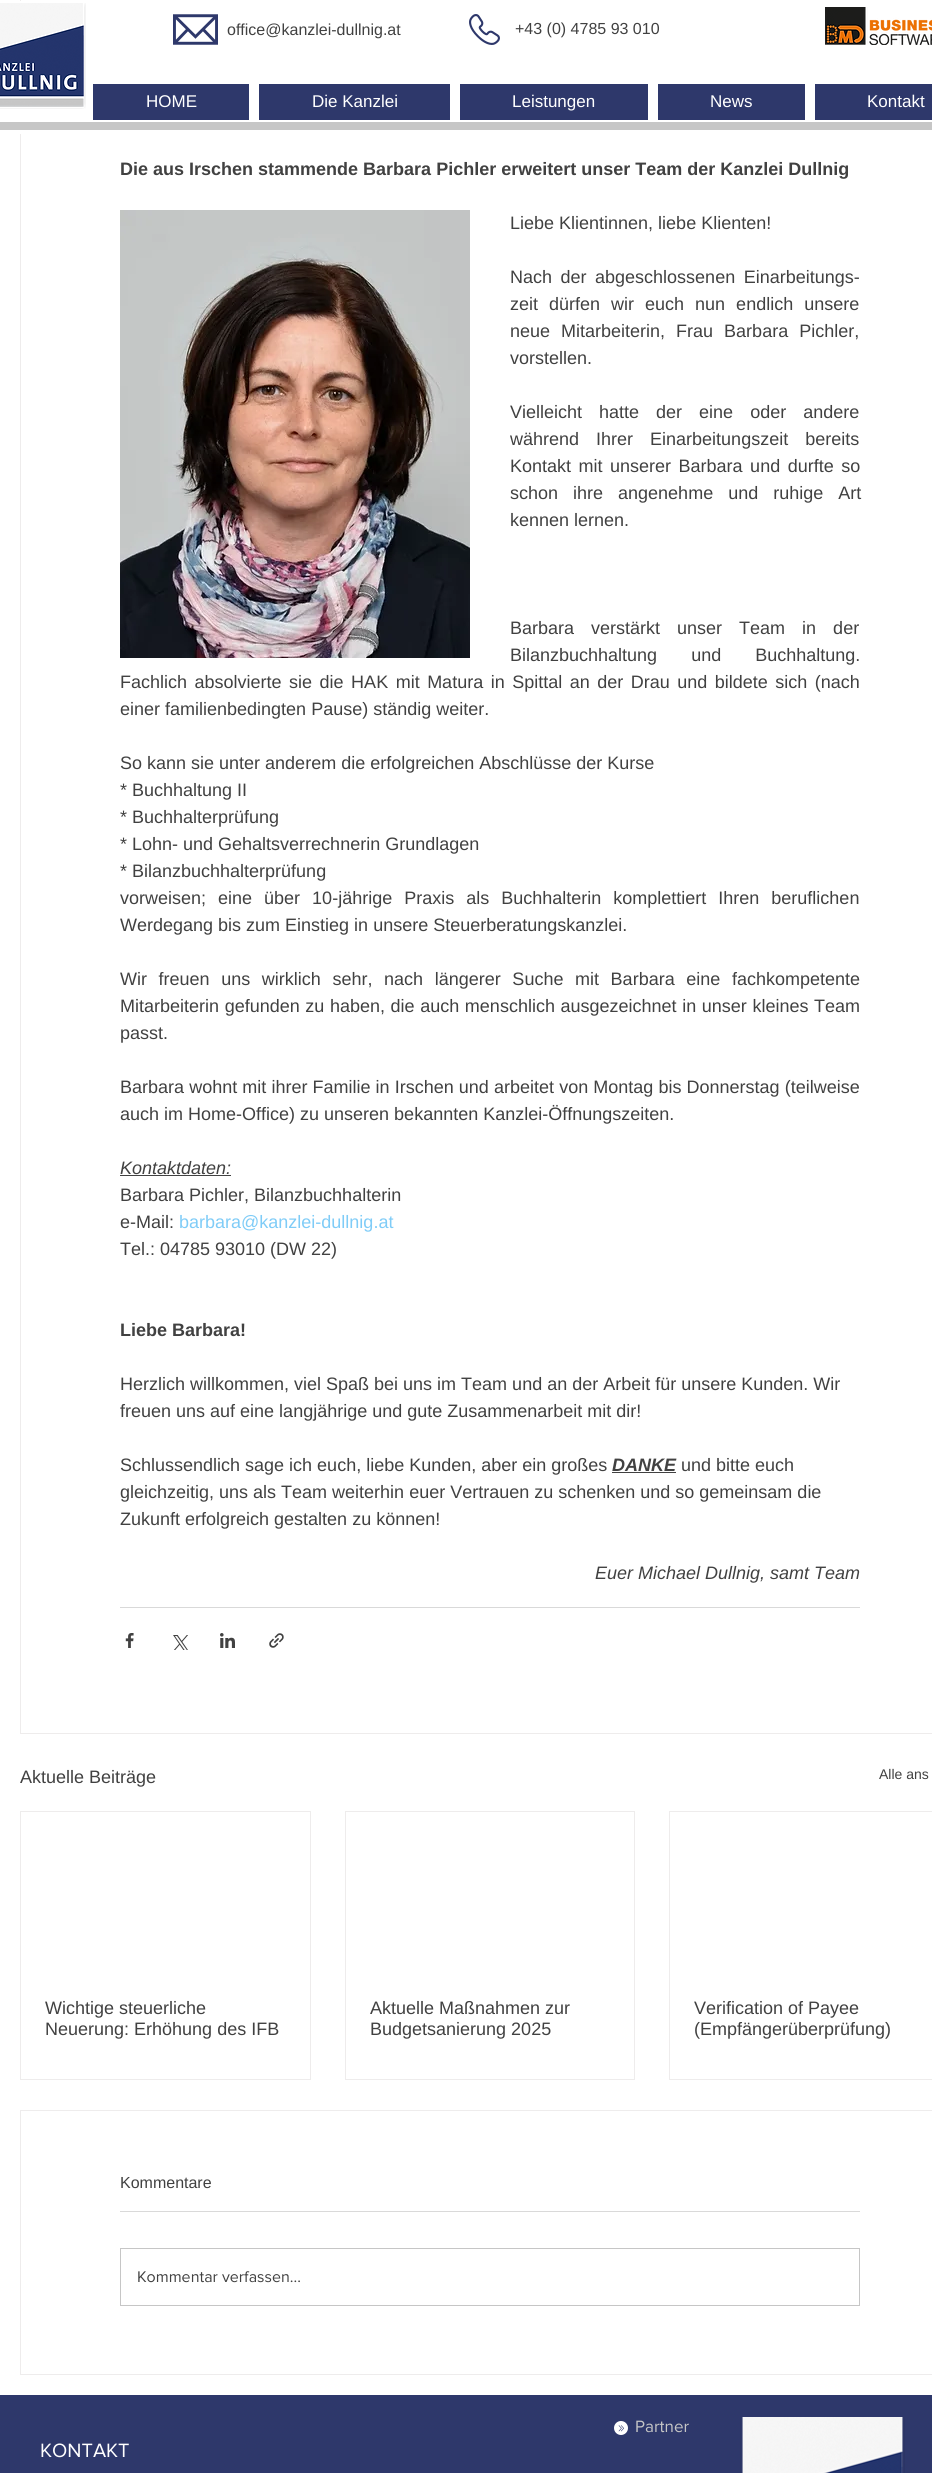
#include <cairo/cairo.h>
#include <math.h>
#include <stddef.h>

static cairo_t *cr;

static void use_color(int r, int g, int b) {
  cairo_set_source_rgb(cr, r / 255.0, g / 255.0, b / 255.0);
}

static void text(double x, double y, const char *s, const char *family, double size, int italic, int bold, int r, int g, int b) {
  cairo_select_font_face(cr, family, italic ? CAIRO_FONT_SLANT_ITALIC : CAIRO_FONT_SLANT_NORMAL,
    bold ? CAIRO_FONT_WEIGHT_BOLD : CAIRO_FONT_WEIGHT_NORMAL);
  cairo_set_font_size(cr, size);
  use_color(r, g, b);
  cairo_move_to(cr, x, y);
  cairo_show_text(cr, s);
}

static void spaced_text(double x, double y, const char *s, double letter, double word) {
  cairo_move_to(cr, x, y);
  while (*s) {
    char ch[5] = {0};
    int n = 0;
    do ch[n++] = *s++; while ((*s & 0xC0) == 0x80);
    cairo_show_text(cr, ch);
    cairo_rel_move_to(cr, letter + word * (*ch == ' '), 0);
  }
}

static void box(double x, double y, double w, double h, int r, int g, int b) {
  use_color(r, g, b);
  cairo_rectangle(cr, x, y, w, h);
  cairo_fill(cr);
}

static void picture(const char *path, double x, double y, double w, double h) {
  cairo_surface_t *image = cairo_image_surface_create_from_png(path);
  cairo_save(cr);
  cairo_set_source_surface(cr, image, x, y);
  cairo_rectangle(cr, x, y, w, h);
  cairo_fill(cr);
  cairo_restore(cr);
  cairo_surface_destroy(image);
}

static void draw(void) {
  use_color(255, 255, 255);
  cairo_paint(cr);
  cairo_rectangle(cr, 20.5, -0.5, 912, 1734);
  use_color(238, 236, 236);
  cairo_set_line_width(cr, 1);
  cairo_stroke(cr);
  box(20, 1, 1, 133, 255, 255, 255);
  picture("img_01.png", 0, 3, 86, 106);
  picture("img_02.png", 173, 14, 45, 31);
  picture("img_03.png", 469, 14, 31, 31);
  picture("img_04.png", 825, 7, 107, 38);
  box(93, 84, 156, 36, 46, 56, 107);
  box(259, 84, 191, 36, 46, 56, 107);
  box(460, 84, 188, 36, 46, 56, 107);
  box(658, 84, 147, 36, 46, 56, 107);
  box(815, 84, 117, 36, 46, 56, 107);
  box(0, 122, 932, 8, 198, 198, 198);
  picture("img_05.png", 120, 210, 350, 448);
  box(120, 1175, 111, 1, 65, 65, 65);
  box(612, 1472, 64, 1, 65, 65, 65);
  box(120, 1607, 740, 1, 217, 217, 217);
  picture("img_06.png", 125, 1633, 9, 15);
  picture("img_07.png", 173, 1635, 15, 15);
  picture("img_08.png", 220, 1633, 15, 15);
  picture("img_09.png", 269, 1633, 15, 15);
  cairo_rectangle(cr, 20.5, 1811.5, 290, 268);
  use_color(238, 236, 236);
  cairo_stroke(cr);
  cairo_rectangle(cr, 345.5, 1811.5, 289, 268);
  cairo_stroke(cr);
  cairo_rectangle(cr, 669.5, 1811.5, 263, 268);
  cairo_stroke(cr);
  cairo_rectangle(cr, 20.5, 2110.5, 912, 264);
  cairo_stroke(cr);
  box(120, 2211, 740, 1, 217, 217, 217);
  cairo_rectangle(cr, 120.5, 2248.5, 739, 57);
  use_color(198, 198, 198);
  cairo_stroke(cr);
  box(0, 2395, 932, 78, 46, 56, 107);
  picture("img_10.png", 614, 2421, 14, 14);
  picture("img_11.png", 740, 2417, 165, 56);
  text(227, 35, "office@kanzlei-dullnig.at", "Liberation Sans", 16, 0, 0, 65, 65, 65);
  text(515, 34, "+43 (0) 4785 93 010", "Liberation Sans", 16, 0, 0, 65, 65, 65);
  text(146, 107, "HOME", "Liberation Sans", 17, 0, 0, 255, 255, 255);
  text(312, 107, "Die Kanzlei", "Liberation Sans", 17, 0, 0, 255, 255, 255);
  text(512, 107, "Leistungen", "Liberation Sans", 17, 0, 0, 255, 255, 255);
  text(710, 107, "News", "Liberation Sans", 17, 0, 0, 255, 255, 255);
  text(867, 107, "Kontakt", "Liberation Sans", 17, 0, 0, 255, 255, 255);
  text(120, 175, "Die aus Irschen stammende Barbara Pichler erweitert unser Team der Kanzlei Dullnig", "Liberation Sans", 18, 0, 1, 65, 65, 65);
  text(510, 229, "Liebe Klientinnen, liebe Klienten!", "Liberation Sans", 18, 0, 0, 65, 65, 65);
  spaced_text(510, 283, "Nach der abgeschlossenen Einarbeitungs-", 0, 3.5);
  spaced_text(510, 310, "zeit dürfen wir euch nun endlich unsere", 0, 6);
  spaced_text(510, 337, "neue Mitarbeiterin, Frau Barbara Pichler,", 0, 6);
  text(510, 364, "vorstellen.", "Liberation Sans", 18, 0, 0, 65, 65, 65);
  spaced_text(510, 418, "Vielleicht hatte der eine oder andere", 0, 12);
  spaced_text(510, 445, "während Ihrer Einarbeitungszeit bereits", 0, 12);
  spaced_text(510, 472, "Kontakt mit unserer Barbara und durfte so", 0, 2.5);
  spaced_text(510, 499, "schon ihre angenehme und ruhige Art", 0, 10);
  text(510, 526, "kennen lernen.", "Liberation Sans", 18, 0, 0, 65, 65, 65);
  spaced_text(510, 634, "Barbara verstärkt unser Team in der", 0, 12);
  spaced_text(510, 661, "Bilanzbuchhaltung und Buchhaltung.", 0, 29);
  spaced_text(120, 688, "Fachlich absolvierte sie die HAK mit Matura in Spittal an der Drau und bildete sich (nach", 0, 2.5);
  text(120, 715, "einer familienbedingten Pause) ständig weiter.", "Liberation Sans", 18, 0, 0, 65, 65, 65);
  text(120, 769, "So kann sie unter anderem die erfolgreichen Abschlüsse der Kurse", "Liberation Sans", 18, 0, 0, 65, 65, 65);
  text(120, 796, "* Buchhaltung II", "Liberation Sans", 18, 0, 0, 65, 65, 65);
  text(120, 823, "* Buchhalterprüfung", "Liberation Sans", 18, 0, 0, 65, 65, 65);
  text(120, 850, "* Lohn- und Gehaltsverrechnerin Grundlagen", "Liberation Sans", 18, 0, 0, 65, 65, 65);
  text(120, 877, "* Bilanzbuchhalterprüfung", "Liberation Sans", 18, 0, 0, 65, 65, 65);
  spaced_text(120, 904, "vorweisen; eine über 10-jährige Praxis als Buchhalterin komplettiert Ihren beruflichen", 0, 7);
  text(120, 931, "Werdegang bis zum Einstieg in unsere Steuerberatungskanzlei.", "Liberation Sans", 18, 0, 0, 65, 65, 65);
  spaced_text(120, 985, "Wir freuen uns wirklich sehr, nach längerer Suche mit Barbara eine fachkompetente", 0, 6.6);
  spaced_text(120, 1012, "Mitarbeiterin gefunden zu haben, die auch menschlich ausgezeichnet in unser kleines Team", 0, 0.6);
  text(120, 1039, "passt.", "Liberation Sans", 18, 0, 0, 65, 65, 65);
  spaced_text(120, 1093, "Barbara wohnt mit ihrer Familie in Irschen und arbeitet von Montag bis Donnerstag (teilweise", 0, 0.1);
  text(120, 1120, "auch im Home-Office) zu unseren bekannten Kanzlei-Öffnungszeiten.", "Liberation Sans", 18, 0, 0, 65, 65, 65);
  text(120, 1174, "Kontaktdaten:", "Liberation Sans", 18, 1, 0, 65, 65, 65);
  text(120, 1201, "Barbara Pichler, Bilanzbuchhalterin", "Liberation Sans", 18, 0, 0, 65, 65, 65);
  text(120, 1228, "e-Mail:", "Liberation Sans", 18, 0, 0, 65, 65, 65);
  text(179, 1228, "barbara@kanzlei-dullnig.at", "Liberation Sans", 18, 0, 0, 127, 204, 247);
  text(120, 1255, "Tel.: 04785 93010 (DW 22)", "Liberation Sans", 18, 0, 0, 65, 65, 65);
  text(120, 1336, "Liebe Barbara!", "Liberation Sans", 18, 0, 1, 65, 65, 65);
  text(120, 1390, "Herzlich willkommen, viel Spaß bei uns im Team und an der Arbeit für unsere Kunden. Wir", "Liberation Sans", 18, 0, 0, 65, 65, 65);
  text(120, 1417, "freuen uns auf eine langjährige und gute Zusammenarbeit mit dir!", "Liberation Sans", 18, 0, 0, 65, 65, 65);
  text(120, 1471, "Schlussendlich sage ich euch, liebe Kunden, aber ein großes", "Liberation Sans", 18, 0, 0, 65, 65, 65);
  text(612, 1471, "DANKE", "Liberation Sans", 18, 1, 1, 65, 65, 65);
  text(681, 1471, "und bitte euch", "Liberation Sans", 18, 0, 0, 65, 65, 65);
  text(120, 1498, "gleichzeitig, uns als Team weiterhin euer Vertrauen zu schenken und so gemeinsam die", "Liberation Sans", 18, 0, 0, 65, 65, 65);
  text(120, 1525, "Zukunft erfolgreich gestalten zu können!", "Liberation Sans", 18, 0, 0, 65, 65, 65);
  text(595, 1579, "Euer Michael Dullnig, samt Team", "Liberation Sans", 18, 1, 0, 65, 65, 65);
  text(20, 1783, "Aktuelle Beiträge", "Liberation Sans", 18, 0, 0, 65, 65, 65);
  text(879, 1779, "Alle ans", "Liberation Sans", 14, 0, 0, 65, 65, 65);
  text(45, 2014, "Wichtige steuerliche", "Liberation Sans", 18, 0, 0, 65, 65, 65);
  text(45, 2035, "Neuerung: Erhöhung des IFB", "Liberation Sans", 18, 0, 0, 65, 65, 65);
  text(370, 2014, "Aktuelle Maßnahmen zur", "Liberation Sans", 18, 0, 0, 65, 65, 65);
  text(370, 2035, "Budgetsanierung 2025", "Liberation Sans", 18, 0, 0, 65, 65, 65);
  text(694, 2014, "Verification of Payee", "Liberation Sans", 18, 0, 0, 65, 65, 65);
  text(694, 2035, "(Empfängerüberprüfung)", "Liberation Sans", 18, 0, 0, 65, 65, 65);
  text(120, 2188, "Kommentare", "Liberation Sans", 16, 0, 0, 65, 65, 65);
  text(137, 2282, "Kommentar verfassen...", "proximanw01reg", 16, 0, 0, 65, 65, 65);
  text(635, 2432, "Partner", "proximanw01reg", 17, 0, 0, 198, 198, 198);
  text(40, 2457, "KONTAKT", "proximanw01reg", 20, 0, 0, 255, 255, 255);
}

int main(void) {
  cairo_surface_t *surface = cairo_image_surface_create(CAIRO_FORMAT_RGB24, 932, 2473);
  cr = cairo_create(surface);
  cairo_font_options_t *options = cairo_font_options_create();
  cairo_font_options_set_hint_metrics(options, CAIRO_HINT_METRICS_OFF);
  cairo_font_options_set_hint_style(options, CAIRO_HINT_STYLE_NONE);
  cairo_set_font_options(cr, options);
  cairo_set_miter_limit(cr, 4);
  draw();
  cairo_surface_write_to_png(surface, "out.png");
  cairo_font_options_destroy(options);
  cairo_destroy(cr);
  cairo_surface_destroy(surface);
  return 0;
}
